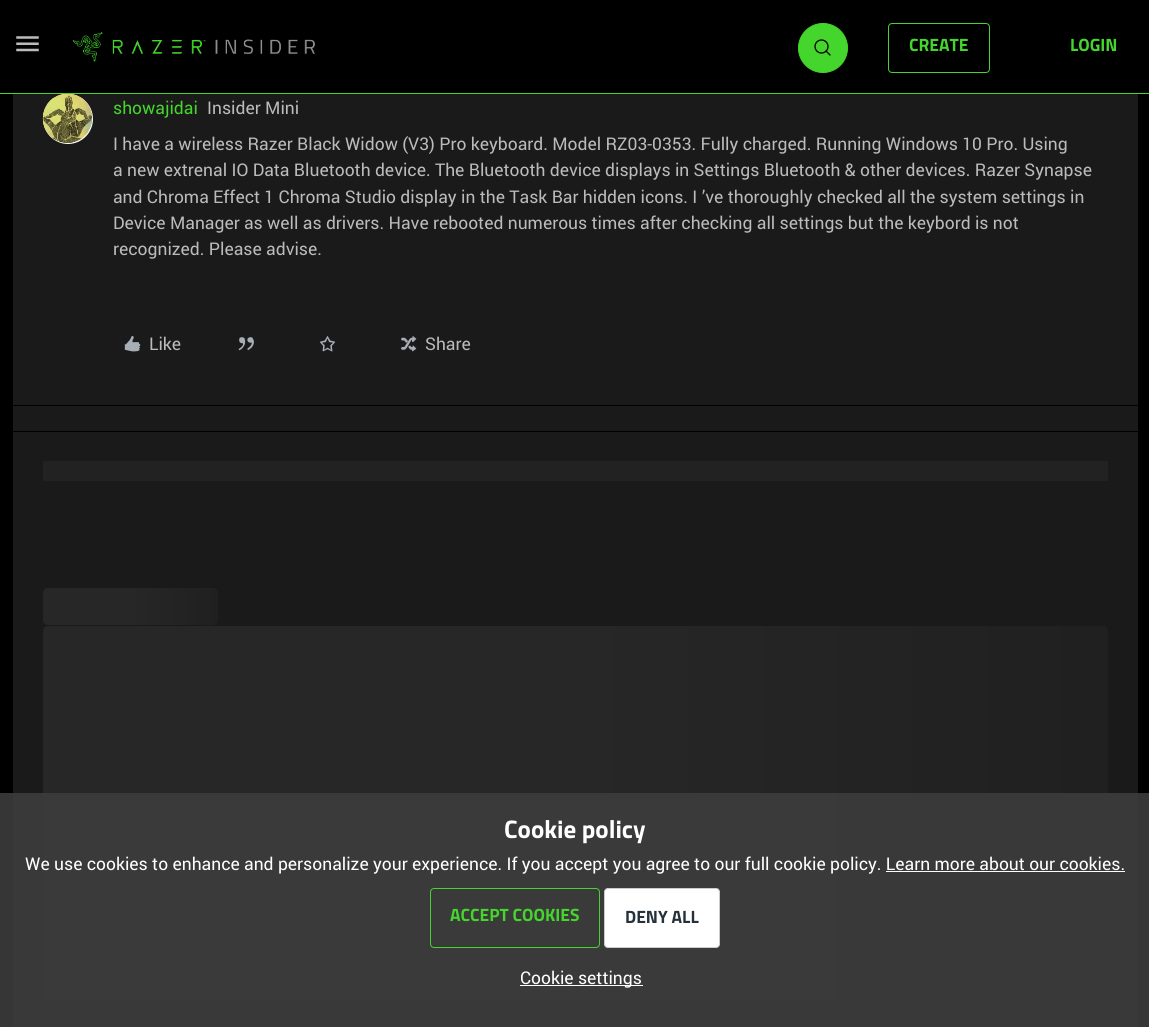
#include <cairo/cairo.h>
#include <math.h>
#include <stddef.h>

static cairo_t *cr;

static void use_color(int r, int g, int b) {
  cairo_set_source_rgb(cr, r / 255.0, g / 255.0, b / 255.0);
}

static void text(double x, double y, const char *s, const char *family, double size, int italic, int bold, int r, int g, int b) {
  cairo_select_font_face(cr, family, italic ? CAIRO_FONT_SLANT_ITALIC : CAIRO_FONT_SLANT_NORMAL,
    bold ? CAIRO_FONT_WEIGHT_BOLD : CAIRO_FONT_WEIGHT_NORMAL);
  cairo_set_font_size(cr, size);
  use_color(r, g, b);
  cairo_move_to(cr, x, y);
  cairo_show_text(cr, s);
}

static void box(double x, double y, double w, double h, int r, int g, int b) {
  use_color(r, g, b);
  cairo_rectangle(cr, x, y, w, h);
  cairo_fill(cr);
}

static void round_rect(double x, double y, double w, double h, double r) {
  cairo_new_sub_path(cr);
  cairo_arc(cr, x + w - r, y + h - r, r, 0, M_PI / 2);
  cairo_arc(cr, x + r, y + h - r, r, M_PI / 2, M_PI);
  cairo_arc(cr, x + r, y + r, r, M_PI, 1.5 * M_PI);
  cairo_arc(cr, x + w - r, y + r, r, 1.5 * M_PI, 2 * M_PI);
  cairo_close_path(cr);
}

static void picture(const char *path, double x, double y, double w, double h) {
  cairo_surface_t *image = cairo_image_surface_create_from_png(path);
  cairo_save(cr);
  cairo_set_source_surface(cr, image, x, y);
  cairo_rectangle(cr, x, y, w, h);
  cairo_fill(cr);
  cairo_restore(cr);
  cairo_surface_destroy(image);
}

static void draw(void) {
  cairo_pattern_t *gradient;
  use_color(0, 0, 0);
  cairo_paint(cr);
  box(0, 93, 1149, 1, 68, 214, 44);
  picture("img_01.png", 16, 36, 23, 16);
  picture("img_02.png", 72, 32, 243, 30);
  cairo_arc(cr, 823, 48, 24.5, 0, 2 * M_PI);
  cairo_fill_preserve(cr);
  use_color(68, 214, 45);
  cairo_set_line_width(cr, 1);
  cairo_stroke(cr);
  cairo_arc(cr, 821.5, 46.5, 6.5, 0, 2 * M_PI);
  use_color(0, 0, 0);
  cairo_set_line_width(cr, 1.3);
  cairo_stroke(cr);
  cairo_new_path(cr);
  cairo_move_to(cr, 826, 51);
  cairo_line_to(cr, 830, 55);
  cairo_set_line_cap(cr, CAIRO_LINE_CAP_ROUND);
  cairo_stroke(cr);
  round_rect(888.5, 23.5, 101, 49, 3.5);
  use_color(68, 214, 44);
  cairo_set_line_width(cr, 1);
  cairo_set_line_cap(cr, CAIRO_LINE_CAP_BUTT);
  cairo_stroke(cr);
  box(13, 94, 1125, 933, 26, 26, 26);
  use_color(255, 255, 255);
  cairo_arc(cr, 68, 119, 25, 0, 2 * M_PI);
  cairo_fill(cr);
  picture("img_03.png", 42, 94, 51, 49);
  picture("img_04.png", 124, 336, 17, 16);
  picture("img_05.png", 238, 337, 16, 14);
  picture("img_06.png", 319, 336, 17, 16);
  picture("img_07.png", 401, 336, 16, 16);
  box(13, 405, 1125, 1, 0, 0, 0);
  box(13, 431, 1125, 1, 0, 0, 0);
  box(43, 461, 1065, 20, 34, 34, 34);
  gradient = cairo_pattern_create_linear(43, 606, 393, 606);
  cairo_pattern_add_color_stop_rgba(gradient, 0.25, 0.153, 0.153, 0.153, 1);
  cairo_pattern_add_color_stop_rgba(gradient, 0.5, 0.125, 0.125, 0.125, 1);
  cairo_pattern_add_color_stop_rgba(gradient, 0.75, 0.153, 0.153, 0.153, 1);
  cairo_set_source(cr, gradient);
  cairo_pattern_destroy(gradient);
  round_rect(43, 588, 175, 37, 5);
  cairo_fill(cr);
  gradient = cairo_pattern_create_linear(43, 814, 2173, 814);
  cairo_pattern_add_color_stop_rgba(gradient, 0.25, 0.153, 0.153, 0.153, 1);
  cairo_pattern_add_color_stop_rgba(gradient, 0.5, 0.125, 0.125, 0.125, 1);
  cairo_pattern_add_color_stop_rgba(gradient, 0.75, 0.153, 0.153, 0.153, 1);
  cairo_set_source(cr, gradient);
  cairo_pattern_destroy(gradient);
  round_rect(43, 626, 1065, 375, 5);
  cairo_fill(cr);
  cairo_set_source_rgba(cr, 0.235, 0.235, 0.235, 0.9);
  cairo_rectangle(cr, 0, 793, 1149, 234);
  cairo_fill(cr);
  box(886, 871, 239, 1, 255, 255, 255);
  round_rect(430.5, 888.5, 169, 59, 3.5);
  use_color(68, 214, 44);
  cairo_stroke(cr);
  use_color(255, 255, 255);
  round_rect(604, 888, 116, 60, 4);
  cairo_fill(cr);
  round_rect(604.5, 888.5, 115, 59, 3.5);
  cairo_set_source_rgba(cr, 0, 0, 0, 0.2);
  cairo_stroke(cr);
  box(520, 985, 123, 1, 255, 255, 255);
  text(909, 51, "CREATE", "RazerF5", 17.5, 0, 1, 68, 214, 44);
  text(1070, 51, "LOGIN", "RazerF5", 17.5, 0, 1, 68, 214, 44);
  text(113, 114, "showajidai", "Roboto", 17.5, 0, 0, 68, 214, 44);
  text(207, 114, "Insider Mini", "Roboto", 17.5, 0, 0, 187, 187, 187);
  text(113, 150, "I have a wireless Razer Black Widow (V3) Pro keyboard. Model RZ03-0353. Fully charged. Running Windows 10 Pro. Using", "Roboto", 17.5, 0, 0, 187, 187, 187);
  text(113, 176, "a new extrenal IO Data Bluetooth device. The Bluetooth device displays in Settings Bluetooth & other devices. Razer Synapse", "Roboto", 17.5, 0, 0, 187, 187, 187);
  text(113, 203, "and Chroma Effect 1 Chroma Studio display in the Task Bar hidden icons. I ’ve thoroughly checked all the system settings in", "Roboto", 17.5, 0, 0, 187, 187, 187);
  text(113, 229, "Device Manager as well as drivers. Have rebooted numerous times after checking all settings but the keybord is not", "Roboto", 17.5, 0, 0, 187, 187, 187);
  text(113, 255, "recognized. Please advise.", "Roboto", 17.5, 0, 0, 187, 187, 187);
  text(149, 350, "Like", "Roboto", 17.5, 0, 0, 187, 187, 187);
  text(425, 350, "Share", "Roboto", 17.5, 0, 0, 187, 187, 187);
  text(504, 838, "Cookie policy", "RazerF5", 25, 0, 1, 255, 255, 255);
  text(25, 870, "We use cookies to enhance and personalize your experience. If you accept you agree to our full cookie policy. Learn more about our cookies.", "Roboto", 17.5, 0, 0, 255, 255, 255);
  text(450, 921, "ACCEPT COOKIES", "RazerF5", 17.5, 0, 1, 68, 214, 44);
  text(625, 923, "DENY ALL", "RazerF5", 17.5, 0, 1, 37, 49, 59);
  text(520, 984, "Cookie settings", "Roboto", 17.5, 0, 0, 255, 255, 255);
}

int main(void) {
  cairo_surface_t *surface = cairo_image_surface_create(CAIRO_FORMAT_RGB24, 1149, 1027);
  cr = cairo_create(surface);
  cairo_font_options_t *options = cairo_font_options_create();
  cairo_font_options_set_hint_metrics(options, CAIRO_HINT_METRICS_OFF);
  cairo_font_options_set_hint_style(options, CAIRO_HINT_STYLE_NONE);
  cairo_set_font_options(cr, options);
  cairo_set_miter_limit(cr, 4);
  draw();
  cairo_surface_write_to_png(surface, "out.png");
  cairo_font_options_destroy(options);
  cairo_destroy(cr);
  cairo_surface_destroy(surface);
  return 0;
}
